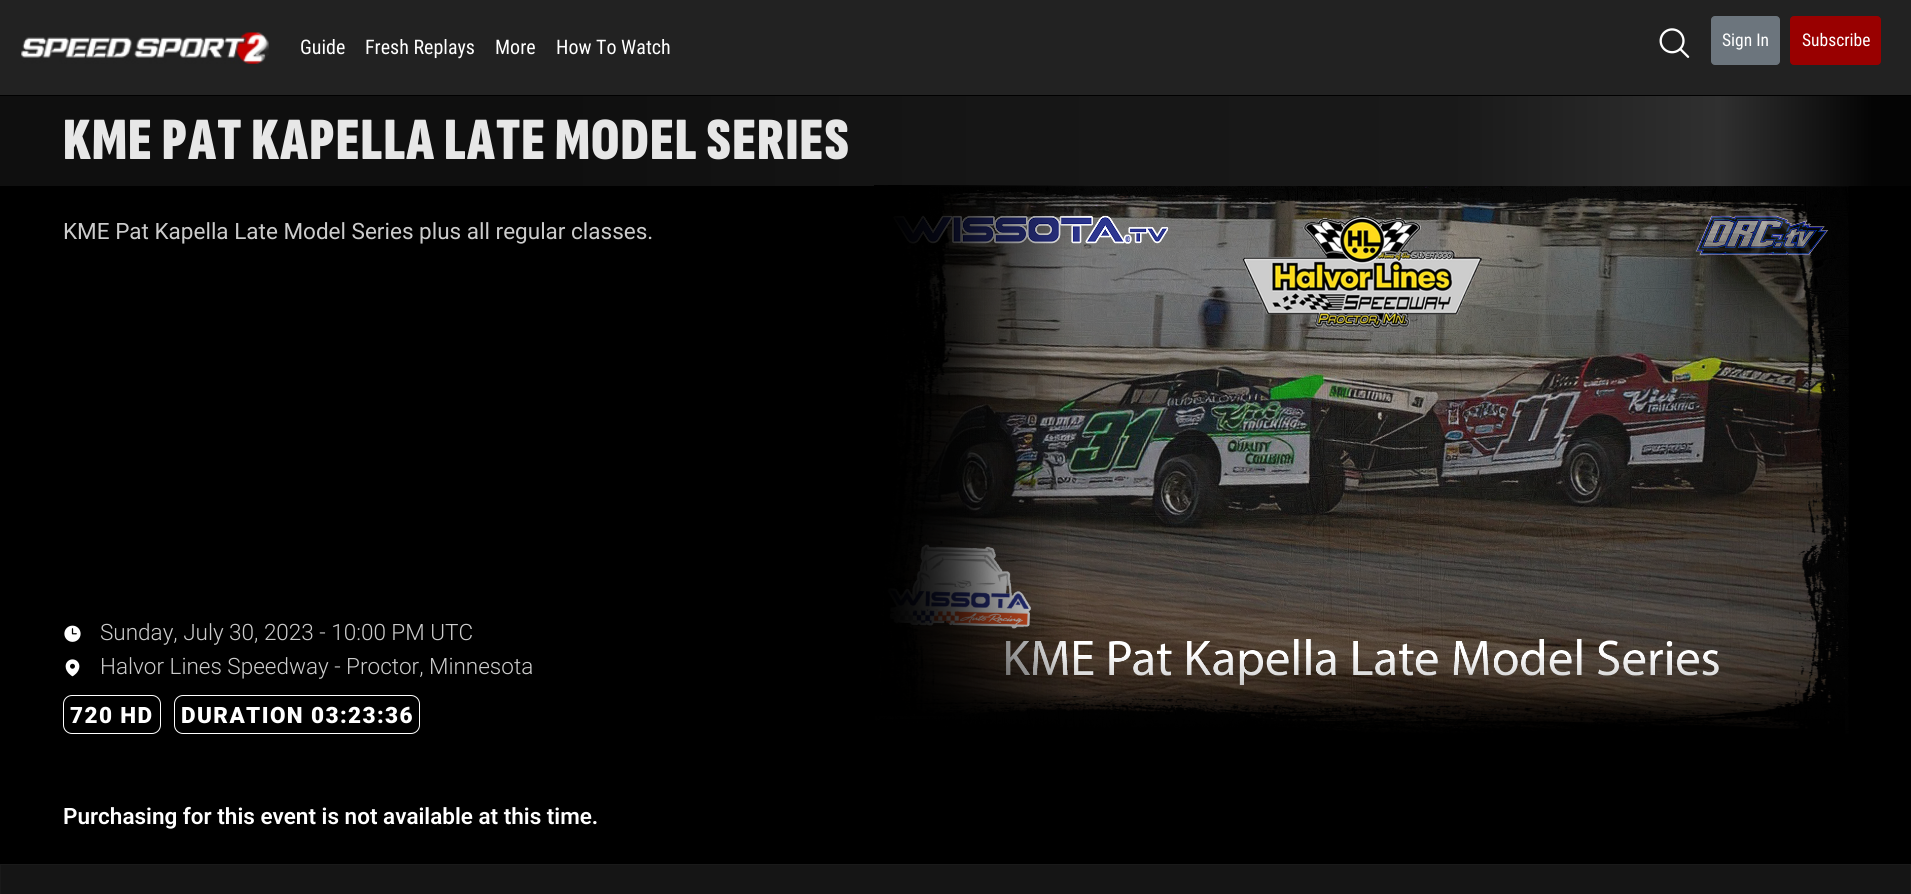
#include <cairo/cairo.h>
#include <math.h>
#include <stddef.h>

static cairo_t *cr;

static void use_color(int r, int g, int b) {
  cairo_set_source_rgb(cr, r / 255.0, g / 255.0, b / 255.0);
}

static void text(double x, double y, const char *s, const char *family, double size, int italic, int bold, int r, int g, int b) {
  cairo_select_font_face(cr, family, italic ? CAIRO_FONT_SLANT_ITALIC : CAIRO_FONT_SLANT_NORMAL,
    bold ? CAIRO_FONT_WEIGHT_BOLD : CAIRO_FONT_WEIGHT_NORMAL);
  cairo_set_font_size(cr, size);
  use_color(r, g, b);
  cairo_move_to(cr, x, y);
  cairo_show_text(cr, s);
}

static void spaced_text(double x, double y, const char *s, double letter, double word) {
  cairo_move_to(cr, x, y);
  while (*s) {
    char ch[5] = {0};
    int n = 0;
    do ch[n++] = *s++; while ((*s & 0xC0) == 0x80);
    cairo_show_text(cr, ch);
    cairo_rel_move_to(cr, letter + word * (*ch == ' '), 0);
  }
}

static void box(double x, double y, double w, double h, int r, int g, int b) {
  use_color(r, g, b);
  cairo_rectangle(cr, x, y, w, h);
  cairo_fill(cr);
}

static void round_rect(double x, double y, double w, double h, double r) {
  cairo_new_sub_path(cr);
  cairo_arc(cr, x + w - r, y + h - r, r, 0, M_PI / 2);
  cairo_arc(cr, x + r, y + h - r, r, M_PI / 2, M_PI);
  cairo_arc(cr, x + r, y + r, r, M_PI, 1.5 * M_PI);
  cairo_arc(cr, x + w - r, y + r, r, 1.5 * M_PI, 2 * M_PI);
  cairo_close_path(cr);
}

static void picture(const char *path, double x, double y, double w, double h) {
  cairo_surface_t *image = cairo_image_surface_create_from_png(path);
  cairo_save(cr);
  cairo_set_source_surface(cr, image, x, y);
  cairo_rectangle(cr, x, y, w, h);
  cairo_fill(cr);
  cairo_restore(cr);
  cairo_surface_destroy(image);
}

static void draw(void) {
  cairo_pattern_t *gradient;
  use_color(0, 0, 0);
  cairo_paint(cr);
  box(0, 0, 1911, 95, 34, 34, 34);
  picture("img_01.png", 21, 32, 248, 32);
  picture("img_02.png", 1659, 28, 31, 30);
  use_color(108, 117, 125);
  round_rect(1711.5, 16.5, 68, 48, 3.5);
  cairo_fill_preserve(cr);
  cairo_set_line_width(cr, 1);
  cairo_stroke(cr);
  use_color(153, 0, 0);
  round_rect(1790.5, 16.5, 90, 48, 3.5);
  cairo_fill_preserve(cr);
  cairo_stroke(cr);
  gradient = cairo_pattern_create_linear(0, 141, 1911, 141);
  cairo_pattern_add_color_stop_rgba(gradient, 0.29, 0.059, 0.059, 0.059, 1);
  cairo_pattern_add_color_stop_rgba(gradient, 0.52, 0.086, 0.086, 0.086, 1);
  cairo_pattern_add_color_stop_rgba(gradient, 0.76, 0.098, 0.098, 0.098, 1);
  cairo_pattern_add_color_stop_rgba(gradient, 0.9, 0.188, 0.188, 0.188, 1);
  cairo_pattern_add_color_stop_rgba(gradient, 0.98, 0.016, 0.016, 0.016, 1);
  cairo_set_source(cr, gradient);
  cairo_pattern_destroy(gradient);
  cairo_rectangle(cr, 0, 96, 1911, 90);
  cairo_fill(cr);
  picture("img_03.png", 64, 625, 17, 17);
  picture("img_04.png", 65, 659, 15, 18);
  round_rect(63.5, 695.5, 97, 38, 8.5);
  use_color(255, 255, 255);
  cairo_stroke(cr);
  round_rect(174.5, 695.5, 245, 38, 8.5);
  cairo_stroke(cr);
  picture("img_05.png", 875, 186, 974, 548);
  gradient = cairo_pattern_create_linear(1362, 735, 1362, 185);
  cairo_pattern_add_color_stop_rgba(gradient, 0, 0, 0, 0, 1);
  cairo_pattern_add_color_stop_rgba(gradient, 0.03, 0, 0, 0, 0.75);
  cairo_pattern_add_color_stop_rgba(gradient, 0.06, 0, 0, 0, 0.5);
  cairo_pattern_add_color_stop_rgba(gradient, 0.08, 0, 0, 0, 0.25);
  cairo_pattern_add_color_stop_rgba(gradient, 0.15, 0, 0, 0, 0);
  cairo_pattern_add_color_stop_rgba(gradient, 1, 0, 0, 0, 0);
  cairo_set_source(cr, gradient);
  cairo_pattern_destroy(gradient);
  cairo_rectangle(cr, 875, 656, 970, 78);
  cairo_fill(cr);
  gradient = cairo_pattern_create_linear(874, 460, 1850, 460);
  cairo_pattern_add_color_stop_rgba(gradient, 0, 0, 0, 0, 1);
  cairo_pattern_add_color_stop_rgba(gradient, 0.04, 0, 0, 0, 0.7);
  cairo_pattern_add_color_stop_rgba(gradient, 0.08, 0, 0, 0, 0.5);
  cairo_pattern_add_color_stop_rgba(gradient, 0.12, 0, 0, 0, 0.25);
  cairo_pattern_add_color_stop_rgba(gradient, 0.2, 0, 0, 0, 0);
  cairo_pattern_add_color_stop_rgba(gradient, 1, 0, 0, 0, 0);
  cairo_set_source(cr, gradient);
  cairo_pattern_destroy(gradient);
  cairo_rectangle(cr, 874, 185, 188, 531);
  cairo_fill(cr);
  gradient = cairo_pattern_create_linear(838, 600, 1886, 320);
  cairo_pattern_add_color_stop_rgba(gradient, 0, 0, 0, 0, 1);
  cairo_pattern_add_color_stop_rgba(gradient, 0.05, 0, 0, 0, 0.75);
  cairo_pattern_add_color_stop_rgba(gradient, 0.1, 0, 0, 0, 0.5);
  cairo_pattern_add_color_stop_rgba(gradient, 0.2, 0, 0, 0, 0);
  cairo_pattern_add_color_stop_rgba(gradient, 1, 0, 0, 0, 0);
  cairo_set_source(cr, gradient);
  cairo_pattern_destroy(gradient);
  cairo_rectangle(cr, 884, 216, 196, 497);
  cairo_fill(cr);
  gradient = cairo_pattern_create_linear(838, 320, 1886, 600);
  cairo_pattern_add_color_stop_rgba(gradient, 0, 0, 0, 0, 1);
  cairo_pattern_add_color_stop_rgba(gradient, 0.05, 0, 0, 0, 0.75);
  cairo_pattern_add_color_stop_rgba(gradient, 0.1, 0, 0, 0, 0.5);
  cairo_pattern_add_color_stop_rgba(gradient, 0.2, 0, 0, 0, 0);
  cairo_pattern_add_color_stop_rgba(gradient, 1, 0, 0, 0, 0);
  cairo_set_source(cr, gradient);
  cairo_pattern_destroy(gradient);
  cairo_rectangle(cr, 888, 185, 200, 441);
  cairo_fill(cr);
  use_color(21, 21, 21);
  cairo_rectangle(cr, 0.5, 864.5, 1910, 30);
  cairo_fill_preserve(cr);
  use_color(26, 26, 26);
  cairo_stroke(cr);
  text(300, 54, "Guide", "Roboto Condensed", 20, 0, 0, 255, 255, 255);
  text(365, 54, "Fresh Replays", "Roboto Condensed", 20, 0, 0, 255, 255, 255);
  text(495, 54, "More", "Roboto Condensed", 20, 0, 0, 255, 255, 255);
  text(556, 54, "How To Watch", "Roboto Condensed", 20, 0, 0, 255, 255, 255);
  text(1722, 46, "Sign In", "Roboto Condensed", 17.5, 0, 0, 255, 255, 255);
  text(1802, 46, "Subscribe", "Roboto Condensed", 17.5, 0, 0, 255, 255, 255);
  cairo_select_font_face(cr, "Sofia Sans Extra Condensed Black", CAIRO_FONT_SLANT_NORMAL, CAIRO_FONT_WEIGHT_NORMAL);
  cairo_set_font_size(cr, 60);
  use_color(231, 231, 231);
  spaced_text(63, 159, "KME PAT KAPELLA LATE MODEL SERIES", 1.2, 0);
  text(63, 239, "KME Pat Kapella Late Model Series plus all regular classes.", "Roboto", 22.5, 0, 0, 204, 204, 204);
  text(100, 640, "Sunday, July 30, 2023 - 10:00 PM UTC", "Roboto Light", 22.5, 0, 0, 204, 204, 204);
  text(100, 674, "Halvor Lines Speedway - Proctor, Minnesota", "Roboto Light", 22.5, 0, 0, 204, 204, 204);
  cairo_select_font_face(cr, "Roboto Black", CAIRO_FONT_SLANT_NORMAL, CAIRO_FONT_WEIGHT_NORMAL);
  use_color(255, 255, 255);
  spaced_text(70, 723, "720 HD", 1.4, 0);
  spaced_text(181, 723, "DURATION 03:23:36", 1.4, 0);
  text(63, 824, "Purchasing for this event is not available at this time.", "Roboto SemiBold", 22.5, 0, 0, 255, 255, 255);
}

int main(void) {
  cairo_surface_t *surface = cairo_image_surface_create(CAIRO_FORMAT_RGB24, 1911, 894);
  cr = cairo_create(surface);
  cairo_font_options_t *options = cairo_font_options_create();
  cairo_font_options_set_hint_metrics(options, CAIRO_HINT_METRICS_OFF);
  cairo_font_options_set_hint_style(options, CAIRO_HINT_STYLE_NONE);
  cairo_set_font_options(cr, options);
  cairo_set_miter_limit(cr, 4);
  draw();
  cairo_surface_write_to_png(surface, "out.png");
  cairo_font_options_destroy(options);
  cairo_destroy(cr);
  cairo_surface_destroy(surface);
  return 0;
}
